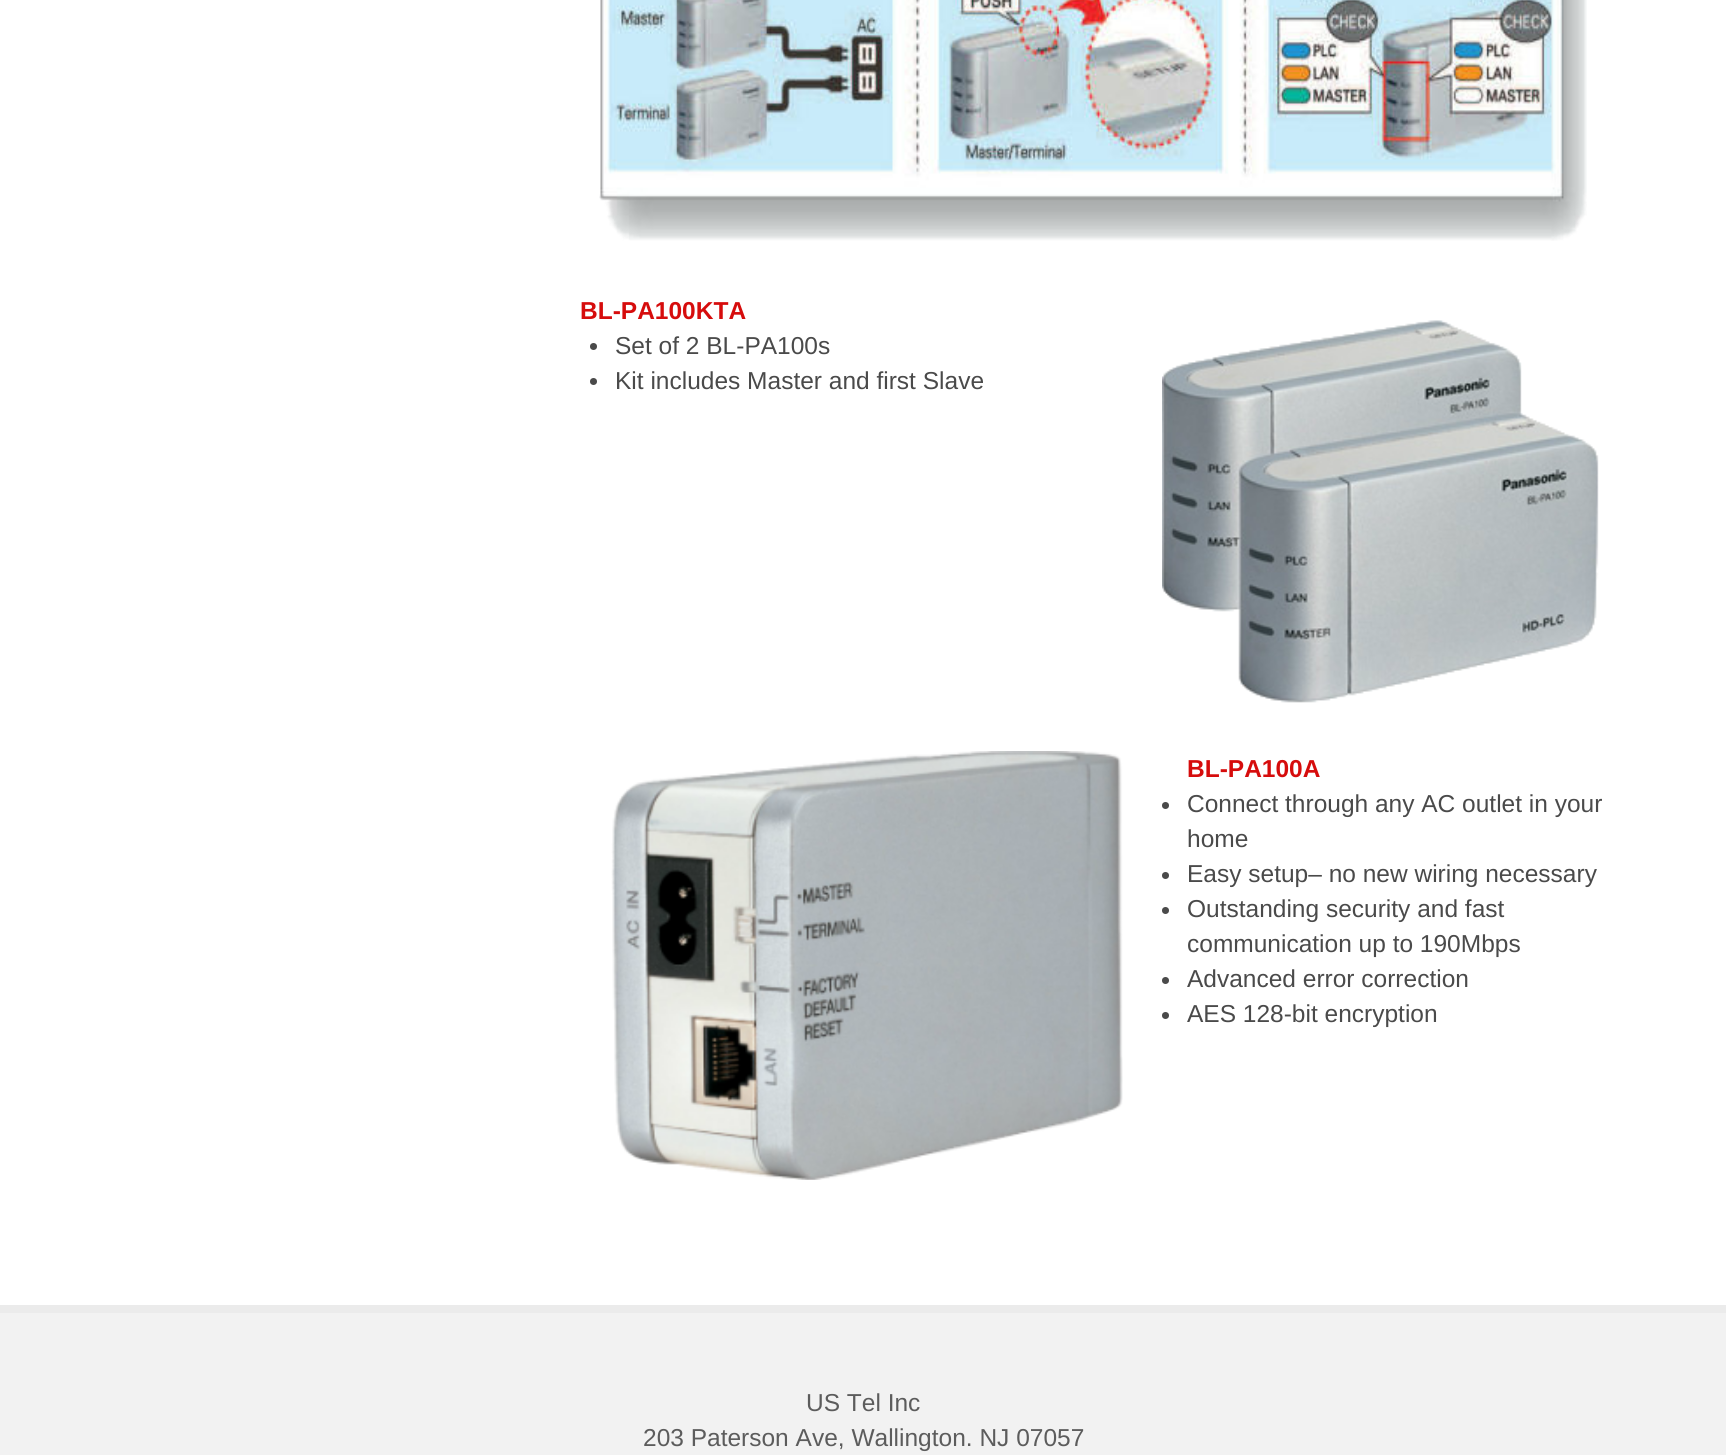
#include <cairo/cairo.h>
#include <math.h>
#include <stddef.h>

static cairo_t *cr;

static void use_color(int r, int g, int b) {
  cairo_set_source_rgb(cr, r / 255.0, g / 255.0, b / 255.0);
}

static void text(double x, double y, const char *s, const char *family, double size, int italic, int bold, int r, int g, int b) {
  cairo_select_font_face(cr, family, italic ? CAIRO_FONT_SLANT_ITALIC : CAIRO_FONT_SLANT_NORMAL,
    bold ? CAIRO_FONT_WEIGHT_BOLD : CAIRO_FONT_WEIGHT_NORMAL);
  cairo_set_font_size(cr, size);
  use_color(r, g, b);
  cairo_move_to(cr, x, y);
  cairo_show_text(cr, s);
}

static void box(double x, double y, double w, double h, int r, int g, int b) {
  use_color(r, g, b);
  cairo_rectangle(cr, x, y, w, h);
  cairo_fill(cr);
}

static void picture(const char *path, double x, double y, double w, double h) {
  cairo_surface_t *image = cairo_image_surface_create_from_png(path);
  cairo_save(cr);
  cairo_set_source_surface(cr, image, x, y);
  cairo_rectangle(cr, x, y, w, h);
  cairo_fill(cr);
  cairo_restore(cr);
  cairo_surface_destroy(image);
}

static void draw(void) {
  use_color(255, 255, 255);
  cairo_paint(cr);
  picture("img_01.png", 599, 0, 988, 241);
  use_color(74, 74, 74);
  cairo_arc(cr, 593.5, 346.5, 3.5, 0, 2 * M_PI);
  cairo_fill(cr);
  cairo_arc(cr, 593.5, 381.5, 3.5, 0, 2 * M_PI);
  cairo_fill(cr);
  picture("img_02.png", 1162, 320, 437, 383);
  picture("img_03.png", 611, 751, 512, 429);
  cairo_arc(cr, 1165.5, 805.5, 3.5, 0, 2 * M_PI);
  cairo_fill(cr);
  cairo_arc(cr, 1165.5, 875.5, 3.5, 0, 2 * M_PI);
  cairo_fill(cr);
  cairo_arc(cr, 1165.5, 910.5, 3.5, 0, 2 * M_PI);
  cairo_fill(cr);
  cairo_arc(cr, 1165.5, 980.5, 3.5, 0, 2 * M_PI);
  cairo_fill(cr);
  cairo_arc(cr, 1165.5, 1015.5, 3.5, 0, 2 * M_PI);
  cairo_fill(cr);
  box(0, 1313, 1726, 142, 242, 242, 242);
  box(0, 1305, 1726, 8, 235, 235, 235);
  text(580, 319, "BL-PA100KTA", "Liberation Sans", 24.5, 0, 1, 214, 12, 12);
  text(615, 354, "Set of 2 BL-PA100s", "Liberation Sans", 24.5, 0, 0, 74, 74, 74);
  text(615, 389, "Kit includes Master and first Slave", "Liberation Sans", 24.5, 0, 0, 74, 74, 74);
  text(1187, 777, "BL-PA100A", "Liberation Sans", 24.5, 0, 1, 214, 12, 12);
  text(1187, 812, "Connect through any AC outlet in your", "Liberation Sans", 24.5, 0, 0, 74, 74, 74);
  text(1187, 847, "home", "Liberation Sans", 24.5, 0, 0, 74, 74, 74);
  text(1187, 882, "Easy setup– no new wiring necessary", "Liberation Sans", 24.5, 0, 0, 74, 74, 74);
  text(1187, 917, "Outstanding security and fast", "Liberation Sans", 24.5, 0, 0, 74, 74, 74);
  text(1187, 952, "communication up to 190Mbps", "Liberation Sans", 24.5, 0, 0, 74, 74, 74);
  text(1187, 987, "Advanced error correction", "Liberation Sans", 24.5, 0, 0, 74, 74, 74);
  text(1187, 1022, "AES 128-bit encryption", "Liberation Sans", 24.5, 0, 0, 74, 74, 74);
  text(806, 1411, "US Tel Inc", "Liberation Sans", 24.5, 0, 0, 92, 92, 92);
  text(643, 1446, "203 Paterson Ave, Wallington. NJ 07057", "Liberation Sans", 24.5, 0, 0, 92, 92, 92);
}

int main(void) {
  cairo_surface_t *surface = cairo_image_surface_create(CAIRO_FORMAT_RGB24, 1726, 1455);
  cr = cairo_create(surface);
  cairo_font_options_t *options = cairo_font_options_create();
  cairo_font_options_set_hint_metrics(options, CAIRO_HINT_METRICS_OFF);
  cairo_font_options_set_hint_style(options, CAIRO_HINT_STYLE_NONE);
  cairo_set_font_options(cr, options);
  cairo_set_miter_limit(cr, 4);
  draw();
  cairo_surface_write_to_png(surface, "out.png");
  cairo_font_options_destroy(options);
  cairo_destroy(cr);
  cairo_surface_destroy(surface);
  return 0;
}
